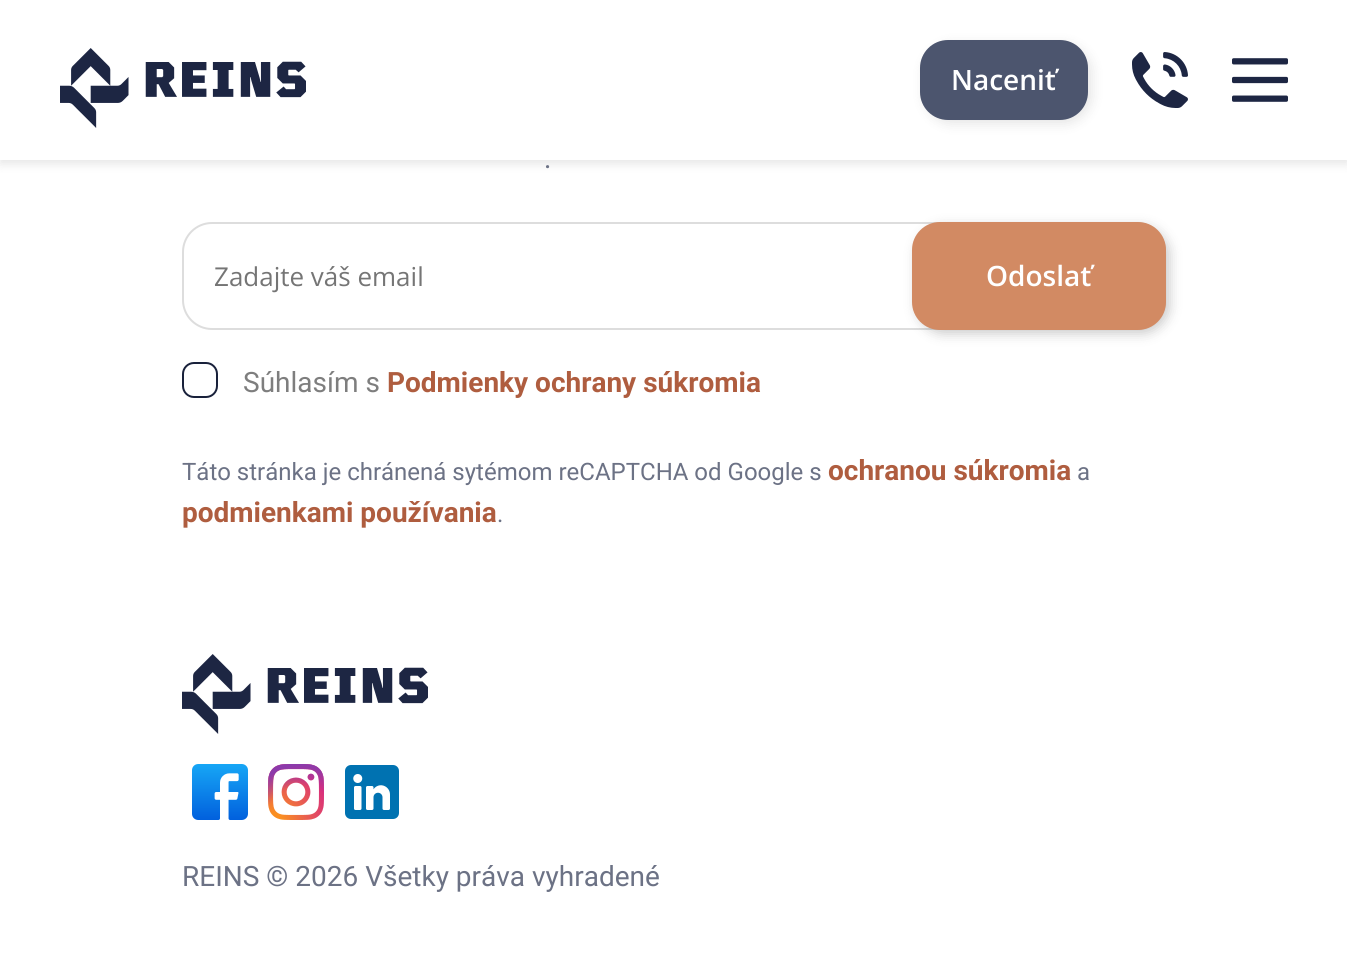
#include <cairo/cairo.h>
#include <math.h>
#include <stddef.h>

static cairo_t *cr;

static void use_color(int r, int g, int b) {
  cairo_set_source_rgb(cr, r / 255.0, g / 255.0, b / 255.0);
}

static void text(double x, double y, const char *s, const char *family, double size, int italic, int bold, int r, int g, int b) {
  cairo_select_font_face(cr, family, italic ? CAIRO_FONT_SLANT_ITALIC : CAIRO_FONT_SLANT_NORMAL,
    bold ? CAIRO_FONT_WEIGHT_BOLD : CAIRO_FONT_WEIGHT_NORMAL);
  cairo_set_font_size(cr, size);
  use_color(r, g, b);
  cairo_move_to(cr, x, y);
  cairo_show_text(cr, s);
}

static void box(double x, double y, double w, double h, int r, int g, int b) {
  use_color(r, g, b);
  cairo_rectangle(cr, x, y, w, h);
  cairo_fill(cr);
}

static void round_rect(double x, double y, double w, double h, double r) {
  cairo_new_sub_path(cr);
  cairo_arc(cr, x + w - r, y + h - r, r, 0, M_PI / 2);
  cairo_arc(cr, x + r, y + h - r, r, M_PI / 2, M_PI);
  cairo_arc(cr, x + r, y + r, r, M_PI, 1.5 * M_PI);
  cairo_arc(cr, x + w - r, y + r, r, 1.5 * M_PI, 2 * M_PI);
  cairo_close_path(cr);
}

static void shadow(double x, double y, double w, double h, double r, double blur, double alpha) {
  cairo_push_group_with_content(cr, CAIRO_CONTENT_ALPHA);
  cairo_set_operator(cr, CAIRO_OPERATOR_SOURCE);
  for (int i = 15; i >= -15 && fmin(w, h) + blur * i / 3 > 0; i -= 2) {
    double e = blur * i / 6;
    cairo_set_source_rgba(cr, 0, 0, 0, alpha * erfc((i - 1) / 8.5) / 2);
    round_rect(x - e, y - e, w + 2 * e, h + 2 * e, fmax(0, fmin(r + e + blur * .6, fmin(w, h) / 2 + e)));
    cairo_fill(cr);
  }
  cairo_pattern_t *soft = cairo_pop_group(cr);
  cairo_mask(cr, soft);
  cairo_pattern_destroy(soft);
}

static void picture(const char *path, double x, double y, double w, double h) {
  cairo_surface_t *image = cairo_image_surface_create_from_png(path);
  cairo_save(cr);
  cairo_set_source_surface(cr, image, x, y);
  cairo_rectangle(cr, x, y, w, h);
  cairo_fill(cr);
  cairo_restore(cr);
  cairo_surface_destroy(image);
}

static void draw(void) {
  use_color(255, 255, 255);
  cairo_paint(cr);
  use_color(0, 0, 0);
  shadow(0, 4, 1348, 160, 0, 5, 0.1);
  box(0, 0, 1347, 160, 255, 255, 255);
  picture("img_01.png", 60, 48, 246, 80);
  use_color(0, 0, 0);
  shadow(924, 44, 168, 80, 28, 6, 0.1);
  use_color(76, 85, 110);
  round_rect(920, 40, 168, 80, 28);
  cairo_fill(cr);
  picture("img_02.png", 1132, 52, 56, 56);
  picture("img_03.png", 1232, 58, 56, 44);
  round_rect(183, 223, 982, 106, 29);
  use_color(221, 221, 221);
  cairo_stroke(cr);
  use_color(0, 0, 0);
  shadow(916, 226, 254, 108, 28, 6, 0.2);
  use_color(210, 138, 99);
  round_rect(912, 222, 254, 108, 28);
  cairo_fill(cr);
  round_rect(183, 363, 34, 34, 11);
  use_color(25, 33, 59);
  cairo_stroke(cr);
  picture("img_04.png", 182, 654, 246, 80);
  picture("img_05.png", 192, 764, 56, 56);
  picture("img_06.png", 268, 764, 56, 56);
  picture("img_07.png", 345, 765, 54, 54);
  text(951, 90, "Naceniť", "Open Sans SemiBold", 28, 0, 0, 255, 255, 255);
  text(544, 168, ".", "Roboto", 28, 0, 0, 108, 114, 133);
  text(214, 286, "Zadajte váš email", "Open Sans", 26, 0, 0, 117, 117, 117);
  text(986, 286, "Odoslať", "Open Sans SemiBold", 28, 0, 0, 255, 255, 255);
  text(243, 392, "Súhlasím s", "Roboto", 28, 0, 0, 126, 126, 126);
  text(387, 392, "Podmienky ochrany súkromia", "Roboto", 28, 0, 1, 175, 93, 63);
  text(182, 480, "Táto stránka je chránená sytémom reCAPTCHA od Google s", "Roboto", 24, 0, 0, 108, 114, 133);
  text(828, 480, "ochranou súkromia", "Roboto", 28, 0, 1, 175, 93, 63);
  text(1077, 480, "a", "Roboto", 24, 0, 0, 108, 114, 133);
  text(182, 522, "podmienkami používania", "Roboto", 28, 0, 1, 175, 93, 63);
  text(497, 522, ".", "Roboto", 24, 0, 0, 108, 114, 133);
  text(182, 886, "REINS © 2026 Všetky práva vyhradené", "Roboto", 28, 0, 0, 108, 114, 133);
}

int main(void) {
  cairo_surface_t *surface = cairo_image_surface_create(CAIRO_FORMAT_RGB24, 1347, 967);
  cr = cairo_create(surface);
  cairo_font_options_t *options = cairo_font_options_create();
  cairo_font_options_set_hint_metrics(options, CAIRO_HINT_METRICS_OFF);
  cairo_font_options_set_hint_style(options, CAIRO_HINT_STYLE_NONE);
  cairo_set_font_options(cr, options);
  cairo_set_miter_limit(cr, 4);
  draw();
  cairo_surface_write_to_png(surface, "out.png");
  cairo_font_options_destroy(options);
  cairo_destroy(cr);
  cairo_surface_destroy(surface);
  return 0;
}
